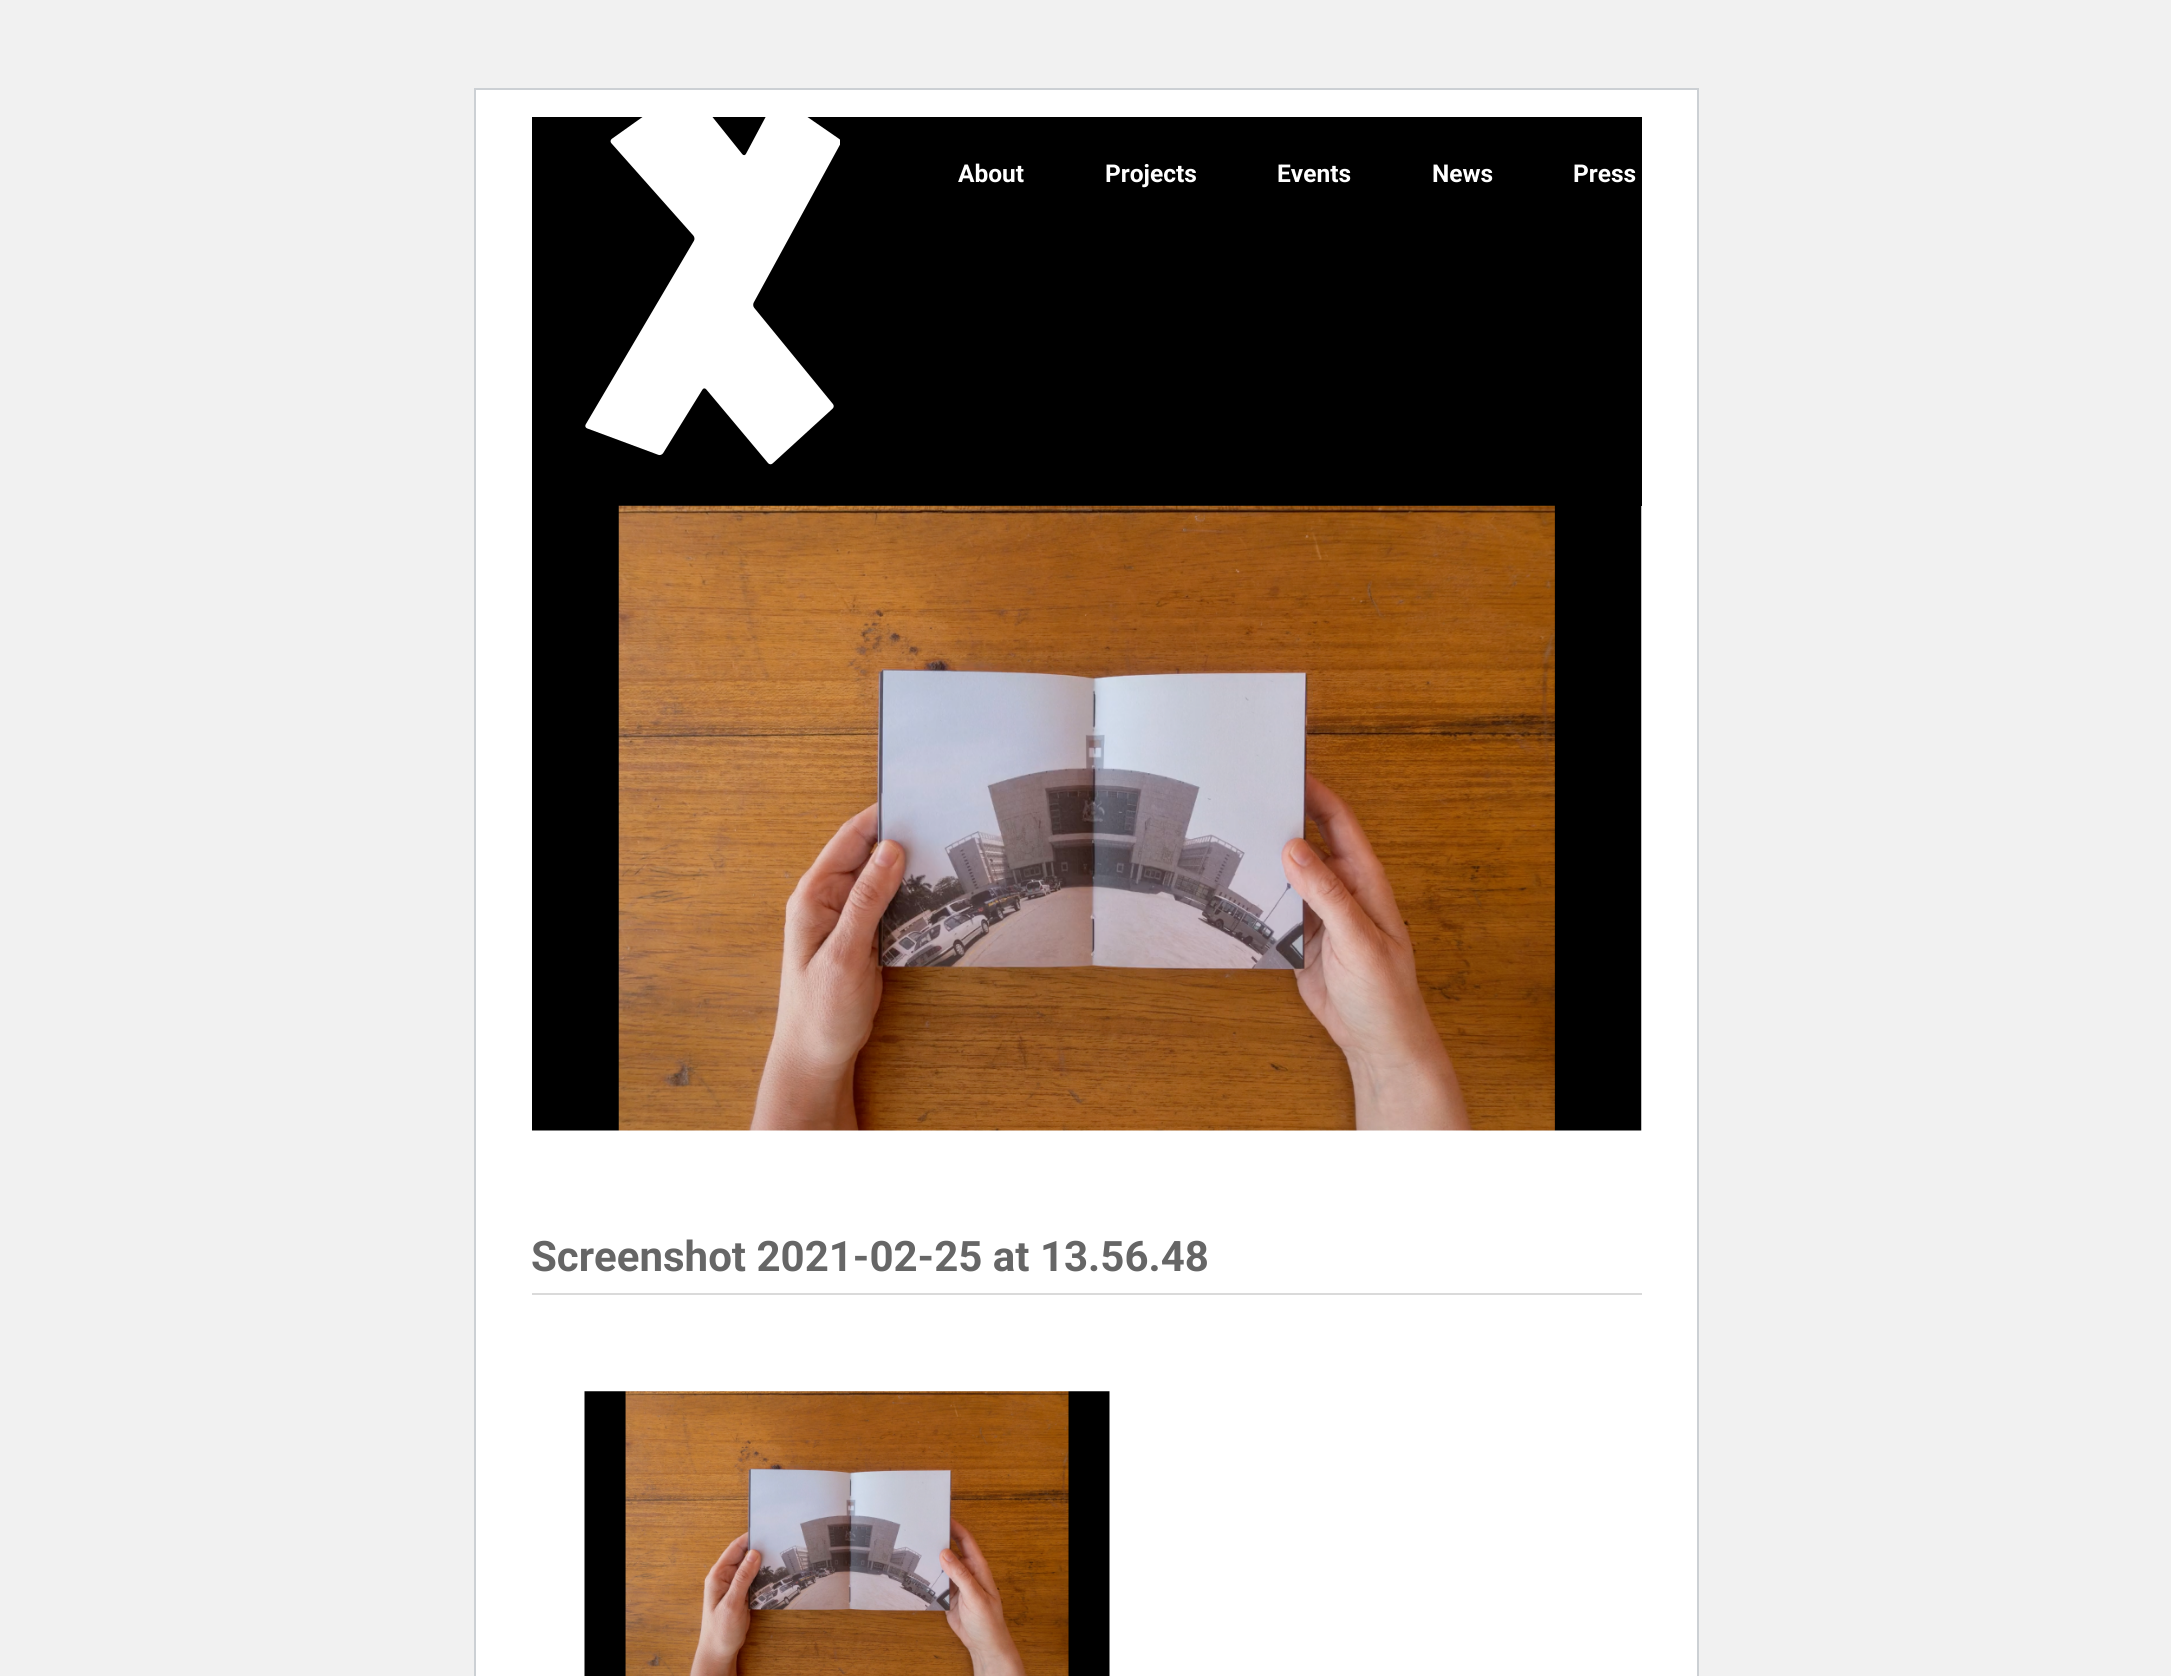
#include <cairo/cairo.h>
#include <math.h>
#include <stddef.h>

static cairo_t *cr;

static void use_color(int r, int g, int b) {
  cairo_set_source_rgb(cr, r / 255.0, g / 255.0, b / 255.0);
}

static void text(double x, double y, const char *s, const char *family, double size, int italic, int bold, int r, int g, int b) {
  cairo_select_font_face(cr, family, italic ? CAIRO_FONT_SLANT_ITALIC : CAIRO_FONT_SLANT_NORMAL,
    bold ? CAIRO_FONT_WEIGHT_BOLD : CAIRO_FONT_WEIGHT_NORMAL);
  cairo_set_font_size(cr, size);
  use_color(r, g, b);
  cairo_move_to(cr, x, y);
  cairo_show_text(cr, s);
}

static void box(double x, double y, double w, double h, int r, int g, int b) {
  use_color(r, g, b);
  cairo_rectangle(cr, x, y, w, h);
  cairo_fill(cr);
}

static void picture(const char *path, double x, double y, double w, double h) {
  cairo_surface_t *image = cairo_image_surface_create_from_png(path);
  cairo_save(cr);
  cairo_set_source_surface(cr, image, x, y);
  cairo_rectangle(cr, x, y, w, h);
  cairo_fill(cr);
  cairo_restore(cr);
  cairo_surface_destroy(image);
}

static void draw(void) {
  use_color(241, 241, 241);
  cairo_paint(cr);
  use_color(255, 255, 255);
  cairo_rectangle(cr, 475, 89, 1223, 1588);
  cairo_fill_preserve(cr);
  use_color(204, 208, 212);
  cairo_stroke(cr);
  box(532, 117, 1110, 389, 0, 0, 0);
  picture("img_01.png", 585, 117, 255, 348);
  picture("img_02.png", 532, 505, 1110, 626);
  box(532, 1293, 1110, 2, 218, 218, 218);
  picture("img_03.png", 584, 1391, 526, 285);
  text(958, 182, "About", "Roboto", 24.5, 0, 1, 255, 255, 255);
  text(1105, 182, "Projects", "Roboto", 24.5, 0, 1, 255, 255, 255);
  text(1277, 182, "Events", "Roboto", 24.5, 0, 1, 255, 255, 255);
  text(1432, 182, "News", "Roboto", 24.5, 0, 1, 255, 255, 255);
  text(1573, 182, "Press", "Roboto", 24.5, 0, 1, 255, 255, 255);
  text(531, 1271, "Screenshot 2021-02-25 at 13.56.48", "Roboto", 42, 0, 1, 102, 102, 102);
}

int main(void) {
  cairo_surface_t *surface = cairo_image_surface_create(CAIRO_FORMAT_RGB24, 2171, 1676);
  cr = cairo_create(surface);
  cairo_font_options_t *options = cairo_font_options_create();
  cairo_font_options_set_hint_metrics(options, CAIRO_HINT_METRICS_OFF);
  cairo_font_options_set_hint_style(options, CAIRO_HINT_STYLE_NONE);
  cairo_set_font_options(cr, options);
  cairo_set_miter_limit(cr, 4);
  draw();
  cairo_surface_write_to_png(surface, "out.png");
  cairo_font_options_destroy(options);
  cairo_destroy(cr);
  cairo_surface_destroy(surface);
  return 0;
}
